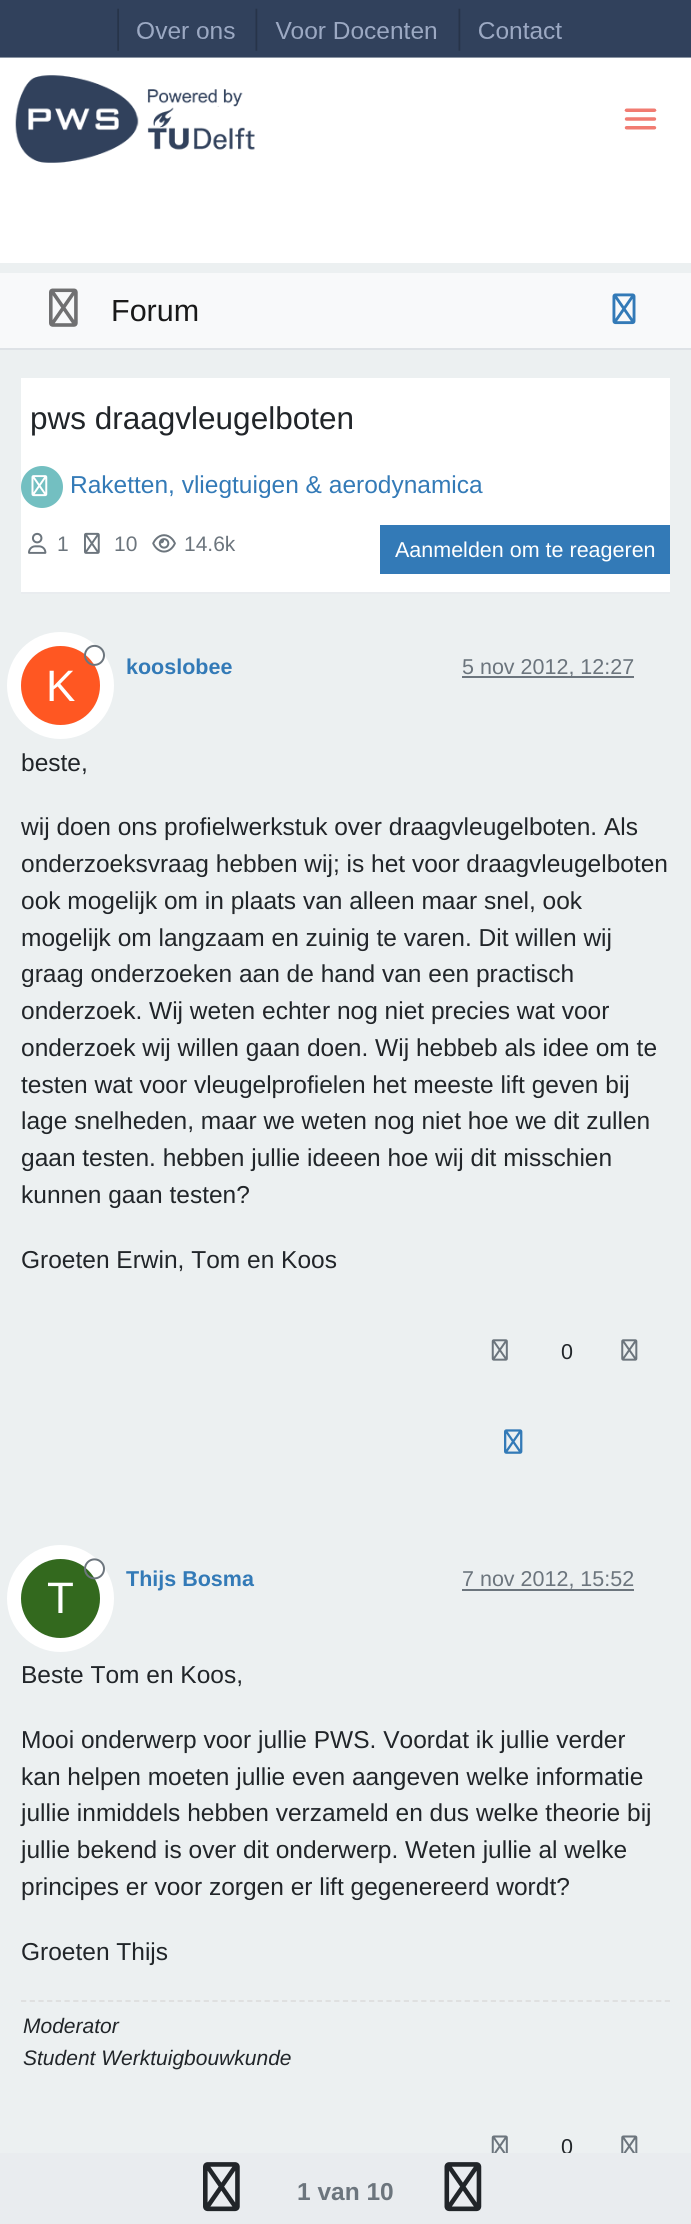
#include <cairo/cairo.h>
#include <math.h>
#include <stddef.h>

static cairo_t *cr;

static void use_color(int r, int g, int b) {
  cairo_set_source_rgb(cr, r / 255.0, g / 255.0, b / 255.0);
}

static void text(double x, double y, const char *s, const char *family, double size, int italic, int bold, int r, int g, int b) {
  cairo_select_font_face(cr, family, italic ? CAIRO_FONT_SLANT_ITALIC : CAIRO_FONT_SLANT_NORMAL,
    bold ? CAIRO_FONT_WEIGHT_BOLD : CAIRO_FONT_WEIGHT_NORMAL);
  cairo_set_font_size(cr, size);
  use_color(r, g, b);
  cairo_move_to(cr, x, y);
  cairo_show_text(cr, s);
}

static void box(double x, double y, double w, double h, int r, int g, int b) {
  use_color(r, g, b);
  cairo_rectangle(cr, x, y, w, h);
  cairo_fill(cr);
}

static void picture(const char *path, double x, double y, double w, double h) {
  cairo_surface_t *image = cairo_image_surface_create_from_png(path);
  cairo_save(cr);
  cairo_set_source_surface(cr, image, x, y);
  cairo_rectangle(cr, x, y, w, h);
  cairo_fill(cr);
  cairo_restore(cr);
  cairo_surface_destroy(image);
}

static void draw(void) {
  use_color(236, 240, 241);
  cairo_paint(cr);
  picture("img_01.png", 0, 0, 691, 163);
  box(0, 163, 691, 100, 255, 255, 255);
  box(0, 273, 691, 75, 248, 249, 250);
  box(0, 348, 691, 2, 222, 226, 230);
  picture("img_02.png", 49, 288, 29, 39);
  picture("img_03.png", 612, 293, 24, 32);
  box(21, 378, 649, 214, 255, 255, 255);
  box(21, 592, 649, 2, 233, 236, 239);
  use_color(115, 191, 193);
  cairo_arc(cr, 42, 487, 21, 0, 2 * M_PI);
  cairo_fill(cr);
  picture("img_04.png", 31, 475, 17, 22);
  picture("img_05.png", 28, 532, 19, 22);
  picture("img_06.png", 84, 532, 16, 22);
  picture("img_07.png", 152, 534, 24, 19);
  box(380, 525, 290, 49, 51, 122, 183);
  box(462, 676, 172, 2, 108, 117, 125);
  cairo_arc(cr, 60.5, 685.5, 46.5, 0, 2 * M_PI);
  use_color(255, 255, 255);
  cairo_set_line_width(cr, 14);
  cairo_stroke(cr);
  use_color(255, 87, 34);
  cairo_arc(cr, 60.5, 685.5, 39.5, 0, 2 * M_PI);
  cairo_fill(cr);
  picture("img_08.png", 84, 644, 21, 22);
  picture("img_09.png", 491, 1339, 17, 22);
  picture("img_10.png", 621, 1339, 17, 22);
  picture("img_11.png", 504, 1429, 19, 25);
  cairo_arc(cr, 60.5, 1598.5, 46.5, 0, 2 * M_PI);
  use_color(255, 255, 255);
  cairo_stroke(cr);
  use_color(51, 105, 30);
  cairo_arc(cr, 60.5, 1598.5, 39.5, 0, 2 * M_PI);
  cairo_fill(cr);
  picture("img_12.png", 84, 1558, 21, 22);
  box(462, 1589, 172, 2, 108, 117, 125);
  cairo_new_path(cr);
  cairo_move_to(cr, 21, 2001);
  cairo_line_to(cr, 670, 2001);
  use_color(222, 222, 222);
  cairo_set_line_width(cr, 1.8);
  cairo_set_dash(cr, (double[]){5.25, 3.45}, 2, 0);
  cairo_stroke(cr);
  picture("img_13.png", 491, 2135, 17, 18);
  picture("img_14.png", 621, 2135, 17, 18);
  text(111, 321, "Forum", "Liberation Sans", 30.5, 0, 0, 25, 25, 25);
  text(30, 429, "pws draagvleugelboten", "Liberation Sans", 31.5, 0, 0, 33, 37, 41);
  text(70, 493, "Raketten, vliegtuigen & aerodynamica", "Liberation Sans", 24.5, 0, 0, 51, 122, 183);
  text(57, 551, "1", "Liberation Sans", 21, 0, 0, 108, 117, 125);
  text(114, 551, "10", "Liberation Sans", 21, 0, 0, 108, 117, 125);
  text(184, 551, "14.6k", "Liberation Sans", 21, 0, 0, 108, 117, 125);
  text(395, 557, "Aanmelden om te reageren", "Liberation Sans", 21.5, 0, 0, 255, 255, 255);
  text(126, 674, "kooslobee", "Liberation Sans", 21.5, 0, 1, 51, 122, 183);
  text(462, 674, "5 nov 2012, 12:27", "Liberation Sans", 21.5, 0, 0, 108, 117, 125);
  text(46, 701, "K", "Liberation Sans", 44, 0, 0, 255, 255, 255);
  text(21, 771, "beste,", "Liberation Sans", 24.5, 0, 0, 33, 37, 41);
  text(21, 835, "wij doen ons profielwerkstuk over draagvleugelboten. Als", "Liberation Sans", 24.5, 0, 0, 33, 37, 41);
  text(21, 872, "onderzoeksvraag hebben wij; is het voor draagvleugelboten", "Liberation Sans", 24.5, 0, 0, 33, 37, 41);
  text(21, 909, "ook mogelijk om in plaats van alleen maar snel, ook", "Liberation Sans", 24.5, 0, 0, 33, 37, 41);
  text(21, 946, "mogelijk om langzaam en zuinig te varen. Dit willen wij", "Liberation Sans", 24.5, 0, 0, 33, 37, 41);
  text(21, 982, "graag onderzoeken aan de hand van een practisch", "Liberation Sans", 24.5, 0, 0, 33, 37, 41);
  text(21, 1019, "onderzoek. Wij weten echter nog niet precies wat voor", "Liberation Sans", 24.5, 0, 0, 33, 37, 41);
  text(21, 1056, "onderzoek wij willen gaan doen. Wij hebbeb als idee om te", "Liberation Sans", 24.5, 0, 0, 33, 37, 41);
  text(21, 1093, "testen wat voor vleugelprofielen het meeste lift geven bij", "Liberation Sans", 24.5, 0, 0, 33, 37, 41);
  text(21, 1129, "lage snelheden, maar we weten nog niet hoe we dit zullen", "Liberation Sans", 24.5, 0, 0, 33, 37, 41);
  text(21, 1166, "gaan testen. hebben jullie ideeen hoe wij dit misschien", "Liberation Sans", 24.5, 0, 0, 33, 37, 41);
  text(21, 1203, "kunnen gaan testen?", "Liberation Sans", 24.5, 0, 0, 33, 37, 41);
  text(21, 1268, "Groeten Erwin, Tom en Koos", "Liberation Sans", 24.5, 0, 0, 33, 37, 41);
  text(561, 1359, "0", "Liberation Sans", 21.5, 0, 0, 33, 37, 41);
  text(47, 1613, "T", "Liberation Sans", 44, 0, 0, 255, 255, 255);
  text(126, 1586, "Thijs Bosma", "Liberation Sans", 21.5, 0, 1, 51, 122, 183);
  text(462, 1586, "7 nov 2012, 15:52", "Liberation Sans", 21.5, 0, 0, 108, 117, 125);
  text(21, 1683, "Beste Tom en Koos,", "Liberation Sans", 24.5, 0, 0, 33, 37, 41);
  text(21, 1748, "Mooi onderwerp voor jullie PWS. Voordat ik jullie verder", "Liberation Sans", 24.5, 0, 0, 33, 37, 41);
  text(21, 1785, "kan helpen moeten jullie even aangeven welke informatie", "Liberation Sans", 24.5, 0, 0, 33, 37, 41);
  text(21, 1821, "jullie inmiddels hebben verzameld en dus welke theorie bij", "Liberation Sans", 24.5, 0, 0, 33, 37, 41);
  text(21, 1858, "jullie bekend is over dit onderwerp. Weten jullie al welke", "Liberation Sans", 24.5, 0, 0, 33, 37, 41);
  text(21, 1895, "principes er voor zorgen er lift gegenereerd wordt?", "Liberation Sans", 24.5, 0, 0, 33, 37, 41);
  text(21, 1960, "Groeten Thijs", "Liberation Sans", 24.5, 0, 0, 33, 37, 41);
  text(23, 2033, "Moderator", "Liberation Sans", 21, 1, 0, 33, 37, 41);
  text(23, 2065, "Student Werktuigbouwkunde", "Liberation Sans", 21, 1, 0, 33, 37, 41);
  text(561, 2154, "0", "Liberation Sans", 21.5, 0, 0, 33, 37, 41);
  box(0, 2153, 691, 71, 233, 236, 239);
  picture("img_15.png", 203, 2162, 37, 50);
  text(297, 2200, "1 van 10", "Liberation Sans", 24.5, 0, 1, 108, 117, 125);
  picture("img_16.png", 444, 2162, 38, 50);
}

int main(void) {
  cairo_surface_t *surface = cairo_image_surface_create(CAIRO_FORMAT_RGB24, 691, 2224);
  cr = cairo_create(surface);
  cairo_font_options_t *options = cairo_font_options_create();
  cairo_font_options_set_hint_metrics(options, CAIRO_HINT_METRICS_OFF);
  cairo_font_options_set_hint_style(options, CAIRO_HINT_STYLE_NONE);
  cairo_set_font_options(cr, options);
  cairo_set_miter_limit(cr, 4);
  draw();
  cairo_surface_write_to_png(surface, "out.png");
  cairo_font_options_destroy(options);
  cairo_destroy(cr);
  cairo_surface_destroy(surface);
  return 0;
}
